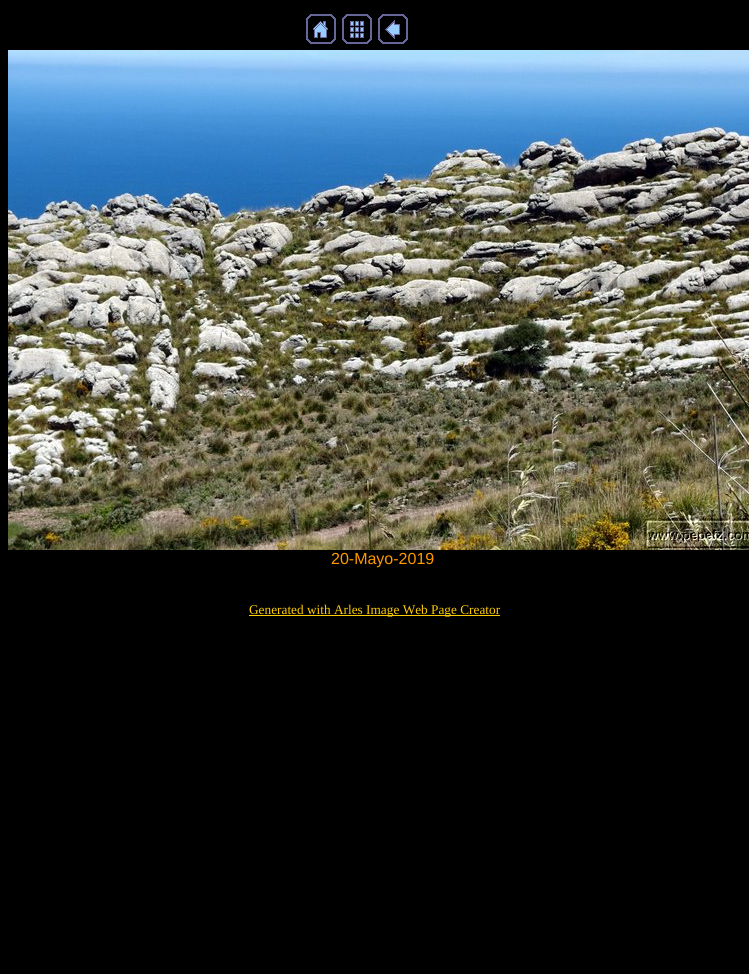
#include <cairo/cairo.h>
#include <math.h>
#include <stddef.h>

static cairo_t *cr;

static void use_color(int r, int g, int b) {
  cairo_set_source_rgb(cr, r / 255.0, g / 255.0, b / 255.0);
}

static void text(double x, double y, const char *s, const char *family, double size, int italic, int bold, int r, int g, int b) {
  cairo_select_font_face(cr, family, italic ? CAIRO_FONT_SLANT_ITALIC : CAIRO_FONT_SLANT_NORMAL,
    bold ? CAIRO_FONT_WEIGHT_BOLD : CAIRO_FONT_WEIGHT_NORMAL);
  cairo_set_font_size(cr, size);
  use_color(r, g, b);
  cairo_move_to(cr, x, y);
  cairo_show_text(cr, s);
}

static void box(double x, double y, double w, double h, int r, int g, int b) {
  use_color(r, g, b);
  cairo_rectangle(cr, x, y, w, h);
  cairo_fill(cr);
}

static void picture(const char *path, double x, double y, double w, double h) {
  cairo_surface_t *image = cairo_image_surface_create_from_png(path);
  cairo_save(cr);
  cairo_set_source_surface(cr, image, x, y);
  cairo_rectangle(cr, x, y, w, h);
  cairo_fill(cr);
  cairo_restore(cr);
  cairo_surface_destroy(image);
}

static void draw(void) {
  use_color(0, 0, 0);
  cairo_paint(cr);
  picture("img_01.png", 306, 14, 30, 30);
  picture("img_02.png", 342, 14, 30, 30);
  picture("img_03.png", 378, 14, 30, 30);
  picture("img_04.png", 8, 50, 741, 500);
  box(249, 615, 251, 1, 255, 204, 0);
  text(331, 564, "20-Mayo-2019", "Liberation Sans", 16, 0, 0, 255, 153, 0);
  text(249, 614, "Generated with Arles Image Web Page Creator", "Liberation Serif", 13.3, 0, 0, 255, 204, 0);
}

int main(void) {
  cairo_surface_t *surface = cairo_image_surface_create(CAIRO_FORMAT_RGB24, 749, 974);
  cr = cairo_create(surface);
  cairo_font_options_t *options = cairo_font_options_create();
  cairo_font_options_set_hint_metrics(options, CAIRO_HINT_METRICS_OFF);
  cairo_font_options_set_hint_style(options, CAIRO_HINT_STYLE_NONE);
  cairo_set_font_options(cr, options);
  cairo_set_miter_limit(cr, 4);
  draw();
  cairo_surface_write_to_png(surface, "out.png");
  cairo_font_options_destroy(options);
  cairo_destroy(cr);
  cairo_surface_destroy(surface);
  return 0;
}
